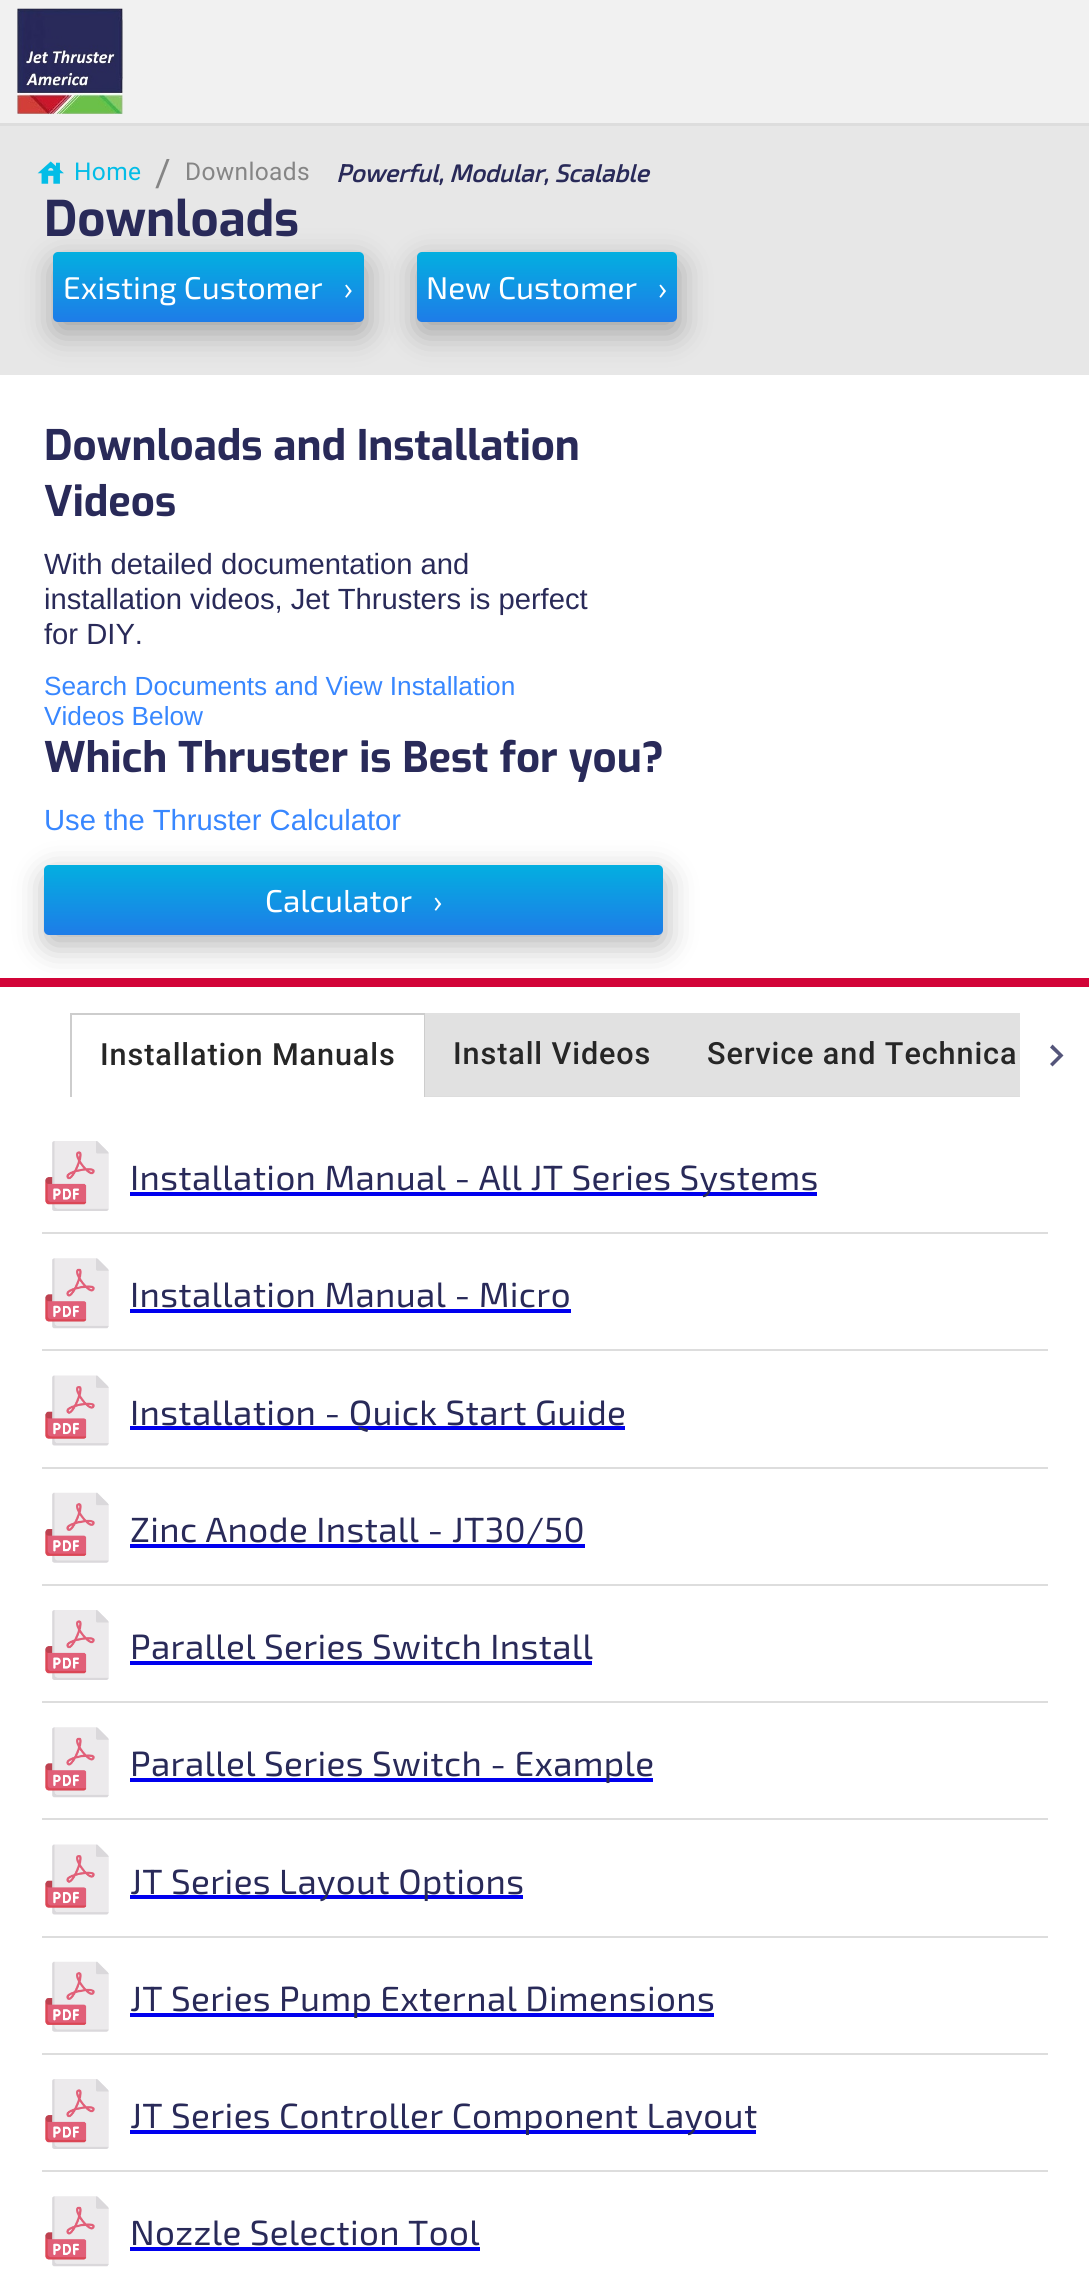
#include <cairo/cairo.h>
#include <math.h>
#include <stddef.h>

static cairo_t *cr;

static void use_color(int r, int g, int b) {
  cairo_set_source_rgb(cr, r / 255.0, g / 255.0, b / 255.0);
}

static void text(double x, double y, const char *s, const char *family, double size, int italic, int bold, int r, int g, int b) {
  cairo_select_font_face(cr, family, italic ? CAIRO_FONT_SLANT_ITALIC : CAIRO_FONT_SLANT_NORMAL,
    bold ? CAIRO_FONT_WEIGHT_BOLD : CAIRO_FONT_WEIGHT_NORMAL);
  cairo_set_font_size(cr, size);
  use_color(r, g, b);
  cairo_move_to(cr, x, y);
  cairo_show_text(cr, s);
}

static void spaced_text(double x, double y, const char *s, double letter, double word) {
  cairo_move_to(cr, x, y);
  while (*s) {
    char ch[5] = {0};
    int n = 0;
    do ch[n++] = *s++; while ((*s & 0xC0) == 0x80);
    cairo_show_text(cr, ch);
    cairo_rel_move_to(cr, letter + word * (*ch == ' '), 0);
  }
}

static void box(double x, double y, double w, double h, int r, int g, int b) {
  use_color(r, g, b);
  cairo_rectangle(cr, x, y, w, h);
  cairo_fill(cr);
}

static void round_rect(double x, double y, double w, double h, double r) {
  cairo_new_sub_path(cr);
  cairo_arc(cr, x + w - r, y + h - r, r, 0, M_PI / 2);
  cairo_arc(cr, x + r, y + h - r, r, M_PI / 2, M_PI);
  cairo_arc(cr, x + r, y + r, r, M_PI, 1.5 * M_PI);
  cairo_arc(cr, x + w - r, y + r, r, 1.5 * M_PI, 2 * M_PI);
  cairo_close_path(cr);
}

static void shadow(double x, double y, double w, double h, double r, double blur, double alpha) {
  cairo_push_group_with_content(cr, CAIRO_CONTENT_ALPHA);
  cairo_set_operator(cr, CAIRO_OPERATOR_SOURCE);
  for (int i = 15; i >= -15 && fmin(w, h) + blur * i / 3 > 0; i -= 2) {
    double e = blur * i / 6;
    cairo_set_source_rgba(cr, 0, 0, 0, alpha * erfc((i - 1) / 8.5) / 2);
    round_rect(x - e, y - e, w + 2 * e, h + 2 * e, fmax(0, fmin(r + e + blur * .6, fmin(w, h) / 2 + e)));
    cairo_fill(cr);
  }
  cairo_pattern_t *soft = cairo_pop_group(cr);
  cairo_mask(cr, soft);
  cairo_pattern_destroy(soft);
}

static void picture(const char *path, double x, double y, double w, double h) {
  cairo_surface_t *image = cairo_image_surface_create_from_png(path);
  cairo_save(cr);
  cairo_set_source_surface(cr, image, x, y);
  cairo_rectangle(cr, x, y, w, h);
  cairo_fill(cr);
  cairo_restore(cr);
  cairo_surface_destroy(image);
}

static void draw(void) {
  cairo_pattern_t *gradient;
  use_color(241, 241, 241);
  cairo_paint(cr);
  box(0, 123, 1089, 3, 221, 221, 221);
  picture("img_01.png", 17, 8, 106, 106);
  box(0, 126, 1089, 249, 231, 231, 231);
  picture("img_02.png", 37, 161, 27, 23);
  box(0, 375, 1089, 1899, 255, 255, 255);
  use_color(0, 0, 0);
  shadow(54, 263, 312, 70, 5, 16, 0.3);
  gradient = cairo_pattern_create_linear(208, 252, 208, 322);
  cairo_pattern_add_color_stop_rgba(gradient, 0, 0.012, 0.686, 0.878, 1);
  cairo_pattern_add_color_stop_rgba(gradient, 1, 0.118, 0.486, 0.91, 1);
  cairo_set_source(cr, gradient);
  cairo_pattern_destroy(gradient);
  round_rect(53, 252, 311, 70, 5);
  cairo_fill(cr);
  use_color(0, 0, 0);
  shadow(418, 263, 261, 70, 5, 16, 0.3);
  gradient = cairo_pattern_create_linear(547, 252, 547, 322);
  cairo_pattern_add_color_stop_rgba(gradient, 0, 0.012, 0.686, 0.878, 1);
  cairo_pattern_add_color_stop_rgba(gradient, 1, 0.118, 0.486, 0.91, 1);
  cairo_set_source(cr, gradient);
  cairo_pattern_destroy(gradient);
  round_rect(417, 252, 260, 70, 5);
  cairo_fill(cr);
  box(0, 978, 1089, 9, 210, 4, 56);
  use_color(0, 0, 0);
  shadow(46, 875, 619, 70, 5, 16, 0.3);
  gradient = cairo_pattern_create_linear(354, 865, 354, 935);
  cairo_pattern_add_color_stop_rgba(gradient, 0, 0.012, 0.686, 0.878, 1);
  cairo_pattern_add_color_stop_rgba(gradient, 1, 0.118, 0.486, 0.91, 1);
  cairo_set_source(cr, gradient);
  cairo_pattern_destroy(gradient);
  round_rect(44, 865, 619, 70, 5);
  cairo_fill(cr);
  box(70, 1013, 355, 2, 205, 205, 205);
  box(424, 1013, 1, 84, 205, 205, 205);
  box(70, 1013, 2, 84, 205, 205, 205);
  box(425, 1013, 595, 83, 225, 225, 225);
  box(425, 1096, 595, 1, 221, 221, 221);
  use_color(84, 85, 122);
  cairo_new_path(cr);
  cairo_move_to(cr, 1050, 1064);
  cairo_line_to(cr, 1058.5, 1055.5);
  cairo_line_to(cr, 1050, 1047.5);
  cairo_line_to(cr, 1052.5, 1044.5);
  cairo_line_to(cr, 1063.5, 1055.5);
  cairo_line_to(cr, 1052.5, 1066.5);
  cairo_close_path(cr);
  cairo_fill(cr);
  box(42, 1232, 1006, 2, 221, 221, 221);
  picture("img_03.png", 45, 1141, 64, 70);
  box(130, 1192, 687, 4, 0, 0, 238);
  box(42, 1349, 1006, 2, 221, 221, 221);
  picture("img_04.png", 45, 1258, 64, 71);
  box(130, 1309, 441, 4, 0, 0, 238);
  box(42, 1467, 1006, 2, 221, 221, 221);
  picture("img_05.png", 45, 1375, 64, 71);
  box(130, 1426, 495, 4, 0, 0, 238);
  box(42, 1584, 1006, 2, 221, 221, 221);
  picture("img_06.png", 45, 1492, 64, 71);
  box(130, 1544, 455, 4, 0, 0, 238);
  box(42, 1701, 1006, 2, 221, 221, 221);
  picture("img_03.png", 45, 1610, 64, 70);
  box(130, 1661, 462, 4, 0, 0, 238);
  box(42, 1818, 1006, 2, 221, 221, 221);
  picture("img_04.png", 45, 1727, 64, 71);
  box(130, 1778, 523, 4, 0, 0, 238);
  box(42, 1936, 1006, 2, 221, 221, 221);
  picture("img_07.png", 45, 1844, 64, 71);
  box(130, 1895, 393, 4, 0, 0, 238);
  box(42, 2053, 1006, 2, 221, 221, 221);
  picture("img_06.png", 45, 1961, 64, 71);
  box(130, 2013, 584, 4, 0, 0, 238);
  box(42, 2170, 1006, 2, 221, 221, 221);
  picture("img_03.png", 45, 2079, 64, 70);
  box(130, 2130, 626, 4, 0, 0, 238);
  picture("img_04.png", 45, 2196, 64, 71);
  box(130, 2247, 350, 4, 0, 0, 238);
  cairo_select_font_face(cr, "Roboto", CAIRO_FONT_SLANT_NORMAL, CAIRO_FONT_WEIGHT_NORMAL);
  cairo_set_font_size(cr, 24.5);
  use_color(3, 189, 231);
  spaced_text(74, 180, "Home", 0.35, 0);
  cairo_set_font_size(cr, 38);
  use_color(133, 133, 133);
  spaced_text(155, 186, "/", 0.35, 0);
  cairo_set_font_size(cr, 24.5);
  spaced_text(185, 180, "Downloads", 0.35, 0);
  text(336, 182, "Powerful, Modular, Scalable", "Exo 2", 24.5, 1, 1, 41, 42, 89);
  text(44, 236, "Downloads", "Exo", 49, 0, 1, 41, 42, 89);
  text(63, 299, "Existing Customer   ›", "Exo 2", 31.5, 0, 0, 255, 255, 255);
  text(426, 299, "New Customer   ›", "Exo 2", 31.5, 0, 0, 255, 255, 255);
  text(44, 460, "Downloads and Installation", "Exo", 42, 0, 1, 41, 42, 89);
  text(44, 516, "Videos", "Exo", 42, 0, 1, 41, 42, 89);
  text(44, 574, "With detailed documentation and", "Liberation Sans", 29.2, 0, 0, 41, 42, 89);
  text(44, 609, "installation videos, Jet Thrusters is perfect", "Liberation Sans", 29.2, 0, 0, 41, 42, 89);
  text(44, 644, "for DIY.", "Liberation Sans", 29.2, 0, 0, 41, 42, 89);
  text(44, 695, "Search Documents and View Installation", "Liberation Sans", 26.25, 0, 0, 56, 135, 255);
  text(44, 725, "Videos Below", "Liberation Sans", 26.25, 0, 0, 56, 135, 255);
  text(44, 772, "Which Thruster is Best for you?", "Exo", 42, 0, 1, 41, 42, 89);
  text(44, 830, "Use the Thruster Calculator", "Liberation Sans", 29.2, 0, 0, 56, 135, 255);
  text(265, 912, "Calculator   ›", "Exo 2", 31.5, 0, 0, 255, 255, 255);
  cairo_select_font_face(cr, "Roboto Medium", CAIRO_FONT_SLANT_NORMAL, CAIRO_FONT_WEIGHT_NORMAL);
  cairo_set_font_size(cr, 30.6);
  use_color(38, 38, 38);
  spaced_text(100, 1065, "Installation Manuals", 0.9, 0);
  spaced_text(453, 1064, "Install Videos", 0.9, 0);
  spaced_text(707, 1064, "Service and Technica", 0.9, 0);
  cairo_select_font_face(cr, "Exo 2", CAIRO_FONT_SLANT_NORMAL, CAIRO_FONT_WEIGHT_NORMAL);
  cairo_set_font_size(cr, 35);
  use_color(41, 42, 89);
  spaced_text(130, 1190, "Installation Manual - All JT Series Systems", 0.35, 0);
  spaced_text(130, 1307, "Installation Manual - Micro", 0.35, 0);
  spaced_text(130, 1425, "Installation - Quick Start Guide", 0.35, 0);
  spaced_text(130, 1542, "Zinc Anode Install - JT30/50", 0.35, 0);
  spaced_text(130, 1659, "Parallel Series Switch Install", 0.35, 0);
  spaced_text(130, 1776, "Parallel Series Switch - Example", 0.35, 0);
  spaced_text(130, 1894, "JT Series Layout Options", 0.35, 0);
  spaced_text(130, 2011, "JT Series Pump External Dimensions", 0.35, 0);
  spaced_text(130, 2128, "JT Series Controller Component Layout", 0.35, 0);
  spaced_text(130, 2245, "Nozzle Selection Tool", 0.35, 0);
}

int main(void) {
  cairo_surface_t *surface = cairo_image_surface_create(CAIRO_FORMAT_RGB24, 1089, 2274);
  cr = cairo_create(surface);
  cairo_font_options_t *options = cairo_font_options_create();
  cairo_font_options_set_hint_metrics(options, CAIRO_HINT_METRICS_OFF);
  cairo_font_options_set_hint_style(options, CAIRO_HINT_STYLE_NONE);
  cairo_set_font_options(cr, options);
  cairo_set_miter_limit(cr, 4);
  draw();
  cairo_surface_write_to_png(surface, "out.png");
  cairo_font_options_destroy(options);
  cairo_destroy(cr);
  cairo_surface_destroy(surface);
  return 0;
}
